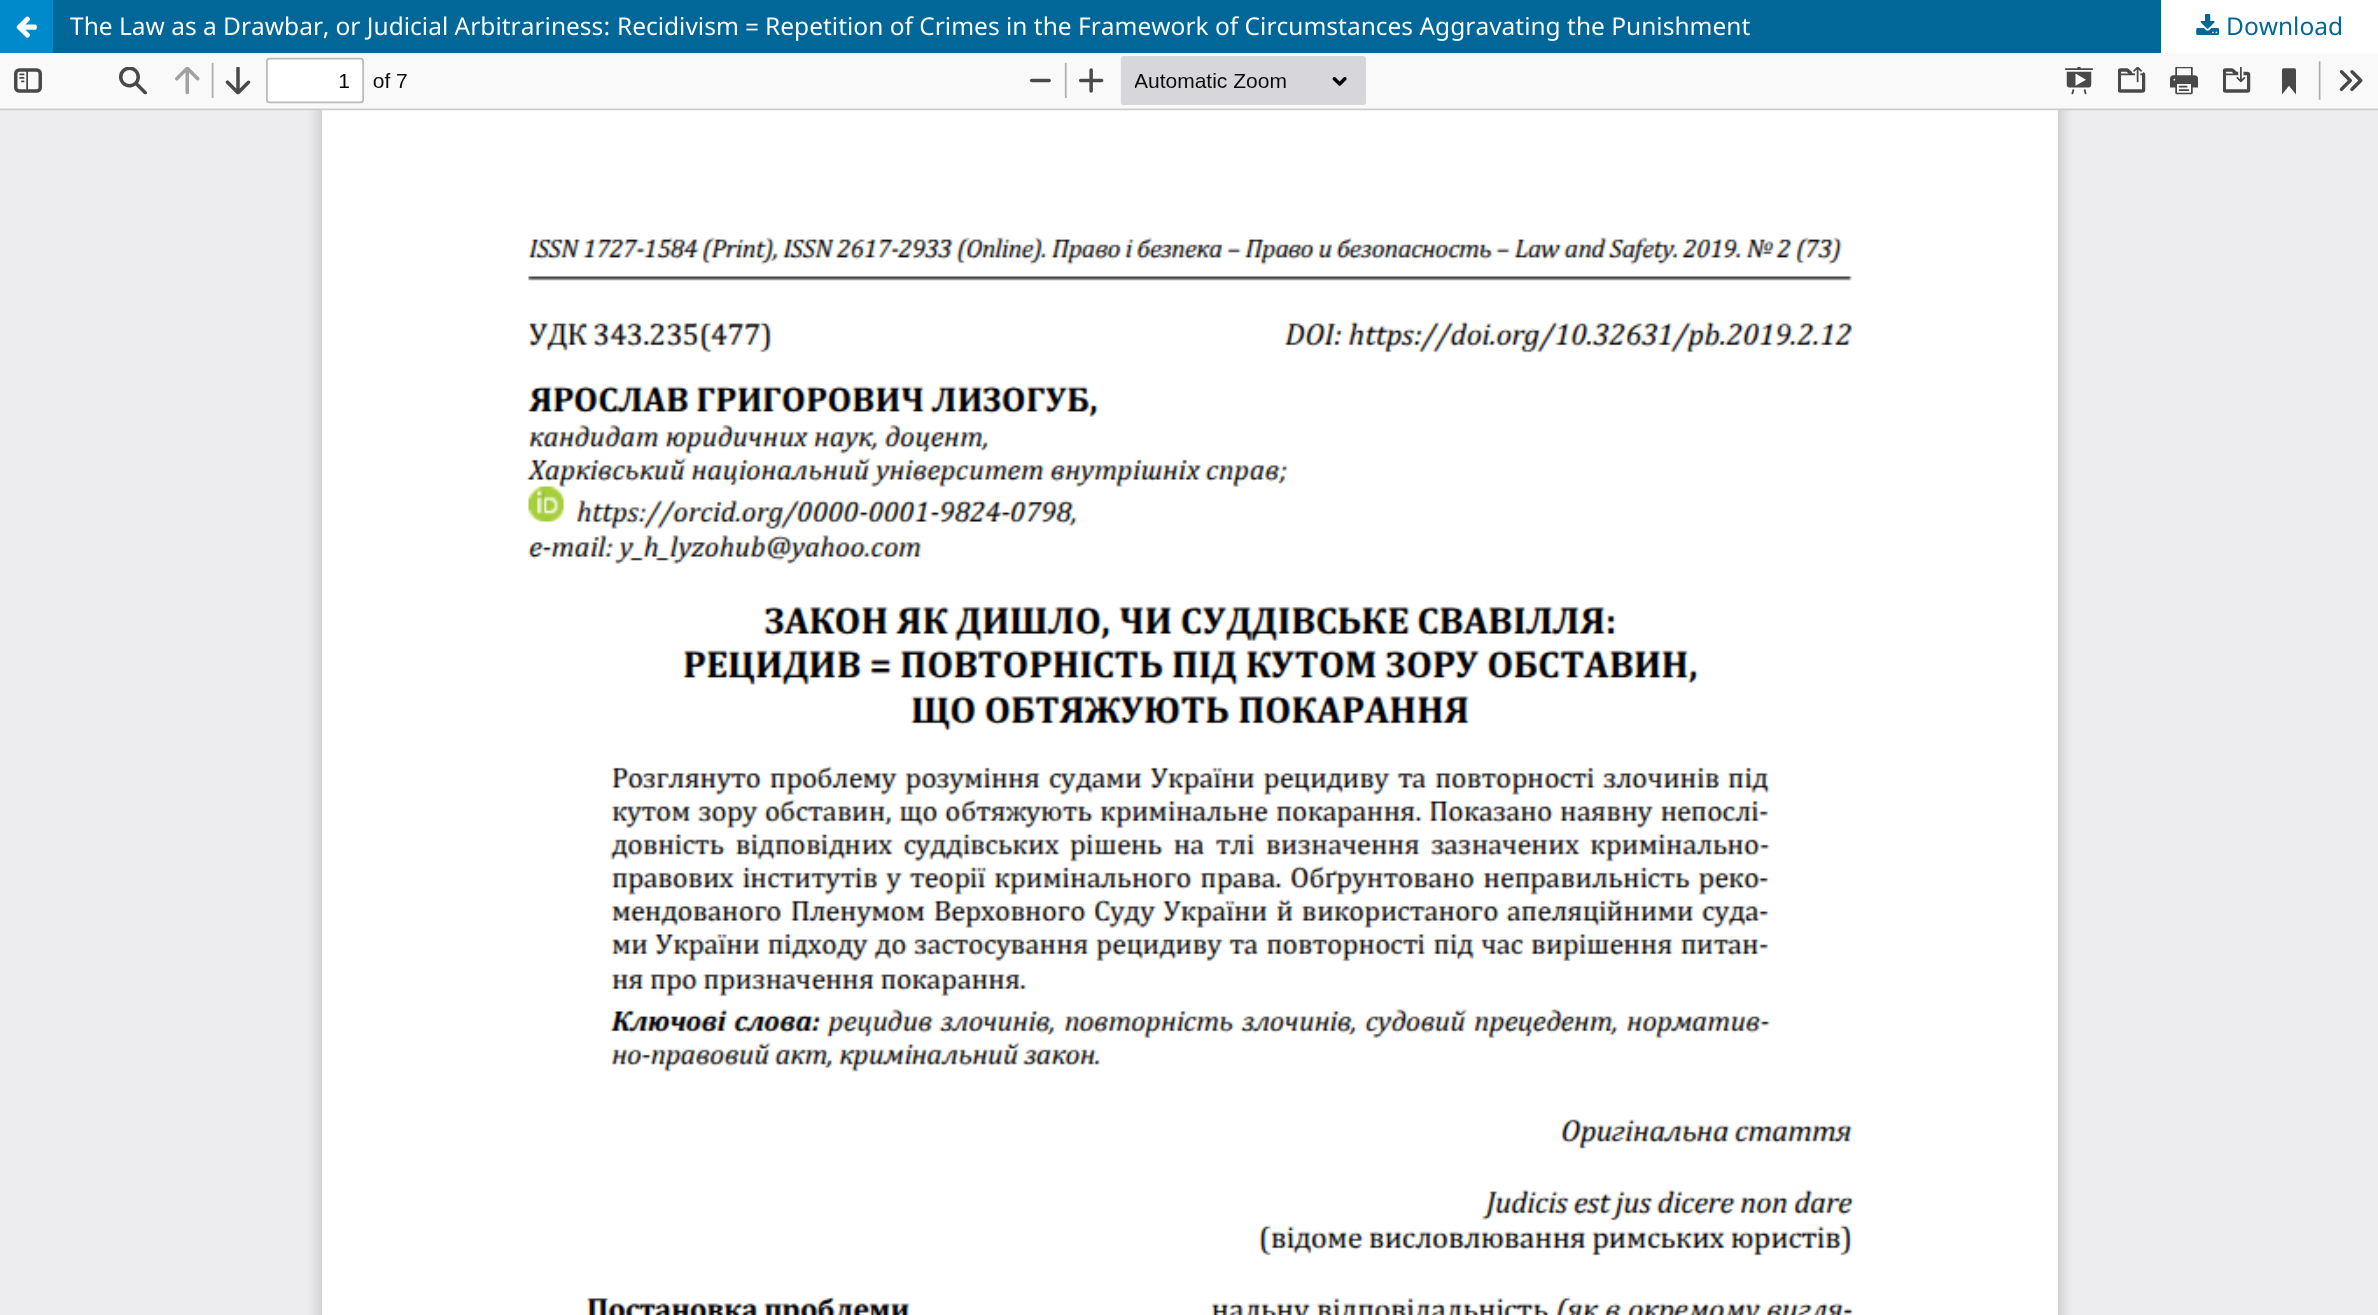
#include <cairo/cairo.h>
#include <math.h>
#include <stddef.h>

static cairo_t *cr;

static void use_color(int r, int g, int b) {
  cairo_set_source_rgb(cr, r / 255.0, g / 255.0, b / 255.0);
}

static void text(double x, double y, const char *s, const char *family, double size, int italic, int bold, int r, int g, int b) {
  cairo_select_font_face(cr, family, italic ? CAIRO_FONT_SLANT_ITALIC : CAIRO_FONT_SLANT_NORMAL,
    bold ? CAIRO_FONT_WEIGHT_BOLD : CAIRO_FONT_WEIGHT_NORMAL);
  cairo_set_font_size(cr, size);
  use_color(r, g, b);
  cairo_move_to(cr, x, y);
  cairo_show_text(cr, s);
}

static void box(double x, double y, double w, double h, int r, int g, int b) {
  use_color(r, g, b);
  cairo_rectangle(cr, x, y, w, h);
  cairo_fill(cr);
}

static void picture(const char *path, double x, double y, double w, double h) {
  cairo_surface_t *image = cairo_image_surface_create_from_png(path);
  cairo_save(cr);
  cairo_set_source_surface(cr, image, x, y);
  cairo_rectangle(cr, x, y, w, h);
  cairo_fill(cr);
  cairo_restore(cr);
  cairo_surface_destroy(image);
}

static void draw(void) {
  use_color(255, 255, 255);
  cairo_paint(cr);
  box(53, 0, 2108, 53, 0, 103, 152);
  box(0, 0, 53, 53, 0, 138, 203);
  picture("img_01.png", 16, 16, 21, 22);
  picture("img_02.png", 2196, 14, 23, 21);
  picture("img_03.png", 0, 53, 2378, 1262);
  text(70, 35, "The Law as a Drawbar, or Judicial Arbitrariness: Recidivism = Repetition of Crimes in the Framework of Circumstances Aggravating the Punishment", "Noto Sans", 24.5, 0, 0, 255, 255, 255);
  text(2226, 35, "Download", "Noto Sans", 24.5, 0, 0, 0, 103, 152);
}

int main(void) {
  cairo_surface_t *surface = cairo_image_surface_create(CAIRO_FORMAT_RGB24, 2378, 1315);
  cr = cairo_create(surface);
  cairo_font_options_t *options = cairo_font_options_create();
  cairo_font_options_set_hint_metrics(options, CAIRO_HINT_METRICS_OFF);
  cairo_font_options_set_hint_style(options, CAIRO_HINT_STYLE_NONE);
  cairo_set_font_options(cr, options);
  cairo_set_miter_limit(cr, 4);
  draw();
  cairo_surface_write_to_png(surface, "out.png");
  cairo_font_options_destroy(options);
  cairo_destroy(cr);
  cairo_surface_destroy(surface);
  return 0;
}
